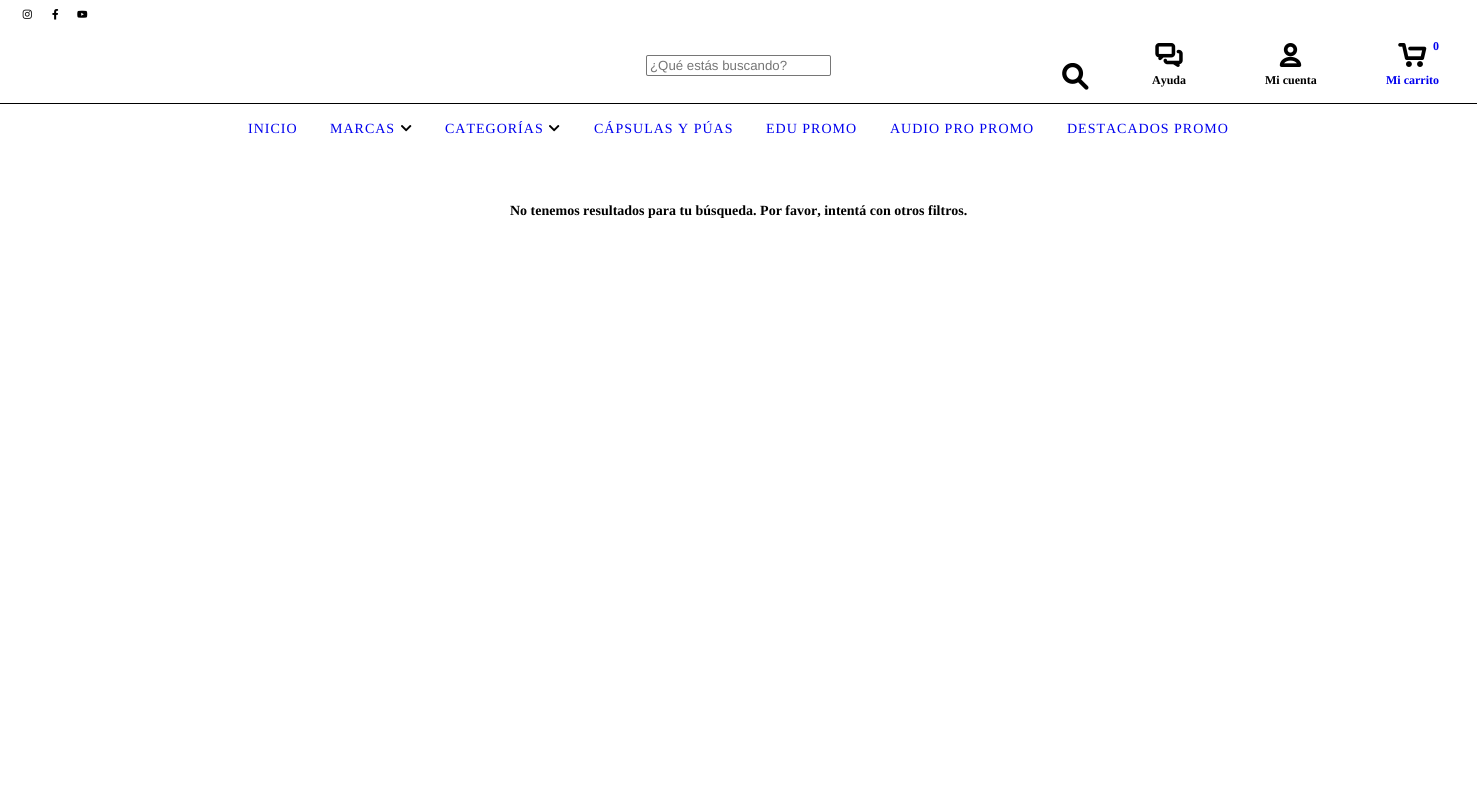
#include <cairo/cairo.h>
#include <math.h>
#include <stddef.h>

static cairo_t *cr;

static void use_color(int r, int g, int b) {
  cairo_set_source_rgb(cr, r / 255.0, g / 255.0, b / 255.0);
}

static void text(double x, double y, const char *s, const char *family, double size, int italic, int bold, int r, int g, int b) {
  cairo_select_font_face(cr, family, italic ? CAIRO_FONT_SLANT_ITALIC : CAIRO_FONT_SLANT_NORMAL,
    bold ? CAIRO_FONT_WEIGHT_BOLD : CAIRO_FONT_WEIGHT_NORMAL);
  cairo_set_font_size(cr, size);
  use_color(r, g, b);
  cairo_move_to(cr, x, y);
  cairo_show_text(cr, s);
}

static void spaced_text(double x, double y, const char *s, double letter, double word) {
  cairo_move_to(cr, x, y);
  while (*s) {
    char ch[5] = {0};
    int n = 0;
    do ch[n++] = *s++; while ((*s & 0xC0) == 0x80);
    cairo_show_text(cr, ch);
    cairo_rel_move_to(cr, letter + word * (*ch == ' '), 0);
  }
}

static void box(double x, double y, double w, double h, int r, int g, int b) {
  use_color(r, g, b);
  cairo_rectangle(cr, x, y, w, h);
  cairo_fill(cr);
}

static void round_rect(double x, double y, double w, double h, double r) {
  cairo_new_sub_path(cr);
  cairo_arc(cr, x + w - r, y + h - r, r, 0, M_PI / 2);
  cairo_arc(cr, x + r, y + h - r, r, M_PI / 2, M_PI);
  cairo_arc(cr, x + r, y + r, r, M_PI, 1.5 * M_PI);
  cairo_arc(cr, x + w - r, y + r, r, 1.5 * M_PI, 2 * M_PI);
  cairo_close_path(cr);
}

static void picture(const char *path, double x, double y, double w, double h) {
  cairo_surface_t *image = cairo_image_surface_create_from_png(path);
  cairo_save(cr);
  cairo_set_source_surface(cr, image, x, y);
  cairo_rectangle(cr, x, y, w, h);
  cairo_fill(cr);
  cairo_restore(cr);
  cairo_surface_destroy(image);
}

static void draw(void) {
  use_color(255, 255, 255);
  cairo_paint(cr);
  picture("img_01.png", 22, 9, 10, 10);
  picture("img_02.png", 52, 9, 7, 11);
  picture("img_03.png", 77, 10, 11, 8);
  round_rect(646.5, 55.5, 184, 20, 1.5);
  use_color(118, 118, 118);
  cairo_set_line_width(cr, 1);
  cairo_stroke(cr);
  picture("img_04.png", 1062, 63, 27, 27);
  picture("img_05.png", 1155, 43, 28, 24);
  picture("img_06.png", 1279, 43, 23, 24);
  picture("img_07.png", 1398, 43, 29, 24);
  box(0, 103, 1477, 1, 0, 0, 0);
  picture("img_08.png", 401, 125, 11, 7);
  picture("img_08.png", 549, 125, 11, 7);
  text(650, 70, "¿Qué estás buscando?", "Liberation Sans", 13.25, 0, 0, 117, 117, 117);
  text(1152, 84, "Ayuda", "Liberation Serif", 12, 0, 1, 0, 0, 0);
  text(1265, 84, "Mi cuenta", "Liberation Serif", 12, 0, 1, 0, 0, 0);
  text(1433, 50, "0", "Liberation Serif", 12, 0, 1, 0, 0, 238);
  text(1386, 84, "Mi carrito", "Liberation Serif", 12, 0, 1, 0, 0, 238);
  cairo_select_font_face(cr, "Liberation Serif", CAIRO_FONT_SLANT_NORMAL, CAIRO_FONT_WEIGHT_NORMAL);
  cairo_set_font_size(cr, 14);
  spaced_text(248, 133, "INICIO", 1, 0);
  spaced_text(330, 133, "MARCAS", 1, 0);
  spaced_text(445, 133, "CATEGORÍAS", 1, 0);
  spaced_text(594, 133, "CÁPSULAS Y PÚAS", 1, 0);
  spaced_text(766, 133, "EDU PROMO", 1, 0);
  spaced_text(890, 133, "AUDIO PRO PROMO", 1, 0);
  spaced_text(1067, 133, "DESTACADOS PROMO", 1, 0);
  text(510, 215, "No tenemos resultados para tu búsqueda. Por favor, intentá con otros filtros.", "Liberation Serif", 14, 0, 1, 0, 0, 0);
}

int main(void) {
  cairo_surface_t *surface = cairo_image_surface_create(CAIRO_FORMAT_RGB24, 1477, 802);
  cr = cairo_create(surface);
  cairo_font_options_t *options = cairo_font_options_create();
  cairo_font_options_set_hint_metrics(options, CAIRO_HINT_METRICS_OFF);
  cairo_font_options_set_hint_style(options, CAIRO_HINT_STYLE_NONE);
  cairo_set_font_options(cr, options);
  cairo_set_miter_limit(cr, 4);
  draw();
  cairo_surface_write_to_png(surface, "out.png");
  cairo_font_options_destroy(options);
  cairo_destroy(cr);
  cairo_surface_destroy(surface);
  return 0;
}
